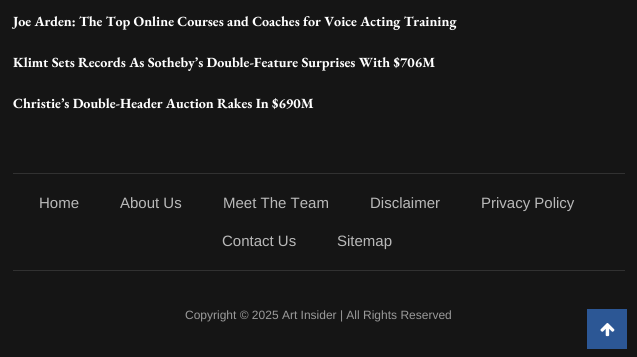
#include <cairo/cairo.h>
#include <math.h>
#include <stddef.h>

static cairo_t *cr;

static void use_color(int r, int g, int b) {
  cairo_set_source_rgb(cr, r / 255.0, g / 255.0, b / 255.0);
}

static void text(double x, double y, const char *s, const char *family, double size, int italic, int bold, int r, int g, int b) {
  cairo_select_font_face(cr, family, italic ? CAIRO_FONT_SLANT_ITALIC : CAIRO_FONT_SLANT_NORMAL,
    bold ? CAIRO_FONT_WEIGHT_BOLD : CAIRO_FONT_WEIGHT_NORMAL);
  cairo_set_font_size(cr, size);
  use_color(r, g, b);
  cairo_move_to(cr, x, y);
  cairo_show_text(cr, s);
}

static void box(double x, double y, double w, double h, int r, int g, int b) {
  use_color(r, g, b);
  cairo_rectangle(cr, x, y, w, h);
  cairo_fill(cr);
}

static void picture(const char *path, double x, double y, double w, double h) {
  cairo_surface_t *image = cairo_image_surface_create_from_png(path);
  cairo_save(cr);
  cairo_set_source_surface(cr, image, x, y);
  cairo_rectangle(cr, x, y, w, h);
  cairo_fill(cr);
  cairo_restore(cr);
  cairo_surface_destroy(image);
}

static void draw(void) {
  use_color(21, 21, 21);
  cairo_paint(cr);
  box(13, 173, 612, 1, 49, 49, 49);
  box(13, 270, 612, 1, 49, 49, 49);
  box(587, 309, 40, 40, 44, 87, 149);
  picture("img_01.png", 600, 323, 15, 14);
  text(13, 26, "Joe Arden: The Top Online Courses and Coaches for Voice Acting Training", "EB Garamond", 14, 0, 1, 255, 255, 255);
  text(13, 67, "Klimt Sets Records As Sotheby’s Double-Feature Surprises With $706M", "EB Garamond", 14, 0, 1, 255, 255, 255);
  text(13, 108, "Christie’s Double-Header Auction Rakes In $690M", "EB Garamond", 14, 0, 1, 255, 255, 255);
  text(39, 208, "Home", "Liberation Sans", 15, 0, 0, 185, 185, 185);
  text(120, 208, "About Us", "Liberation Sans", 15, 0, 0, 185, 185, 185);
  text(223, 208, "Meet The Team", "Liberation Sans", 15, 0, 0, 185, 185, 185);
  text(370, 208, "Disclaimer", "Liberation Sans", 15, 0, 0, 185, 185, 185);
  text(481, 208, "Privacy Policy", "Liberation Sans", 15, 0, 0, 185, 185, 185);
  text(222, 246, "Contact Us", "Liberation Sans", 15, 0, 0, 185, 185, 185);
  text(337, 246, "Sitemap", "Liberation Sans", 15, 0, 0, 185, 185, 185);
  text(185, 319, "Copyright © 2025 Art Insider | All Rights Reserved", "Liberation Sans", 12, 0, 0, 154, 154, 154);
}

int main(void) {
  cairo_surface_t *surface = cairo_image_surface_create(CAIRO_FORMAT_RGB24, 637, 357);
  cr = cairo_create(surface);
  cairo_font_options_t *options = cairo_font_options_create();
  cairo_font_options_set_hint_metrics(options, CAIRO_HINT_METRICS_OFF);
  cairo_font_options_set_hint_style(options, CAIRO_HINT_STYLE_NONE);
  cairo_set_font_options(cr, options);
  cairo_set_miter_limit(cr, 4);
  draw();
  cairo_surface_write_to_png(surface, "out.png");
  cairo_font_options_destroy(options);
  cairo_destroy(cr);
  cairo_surface_destroy(surface);
  return 0;
}
